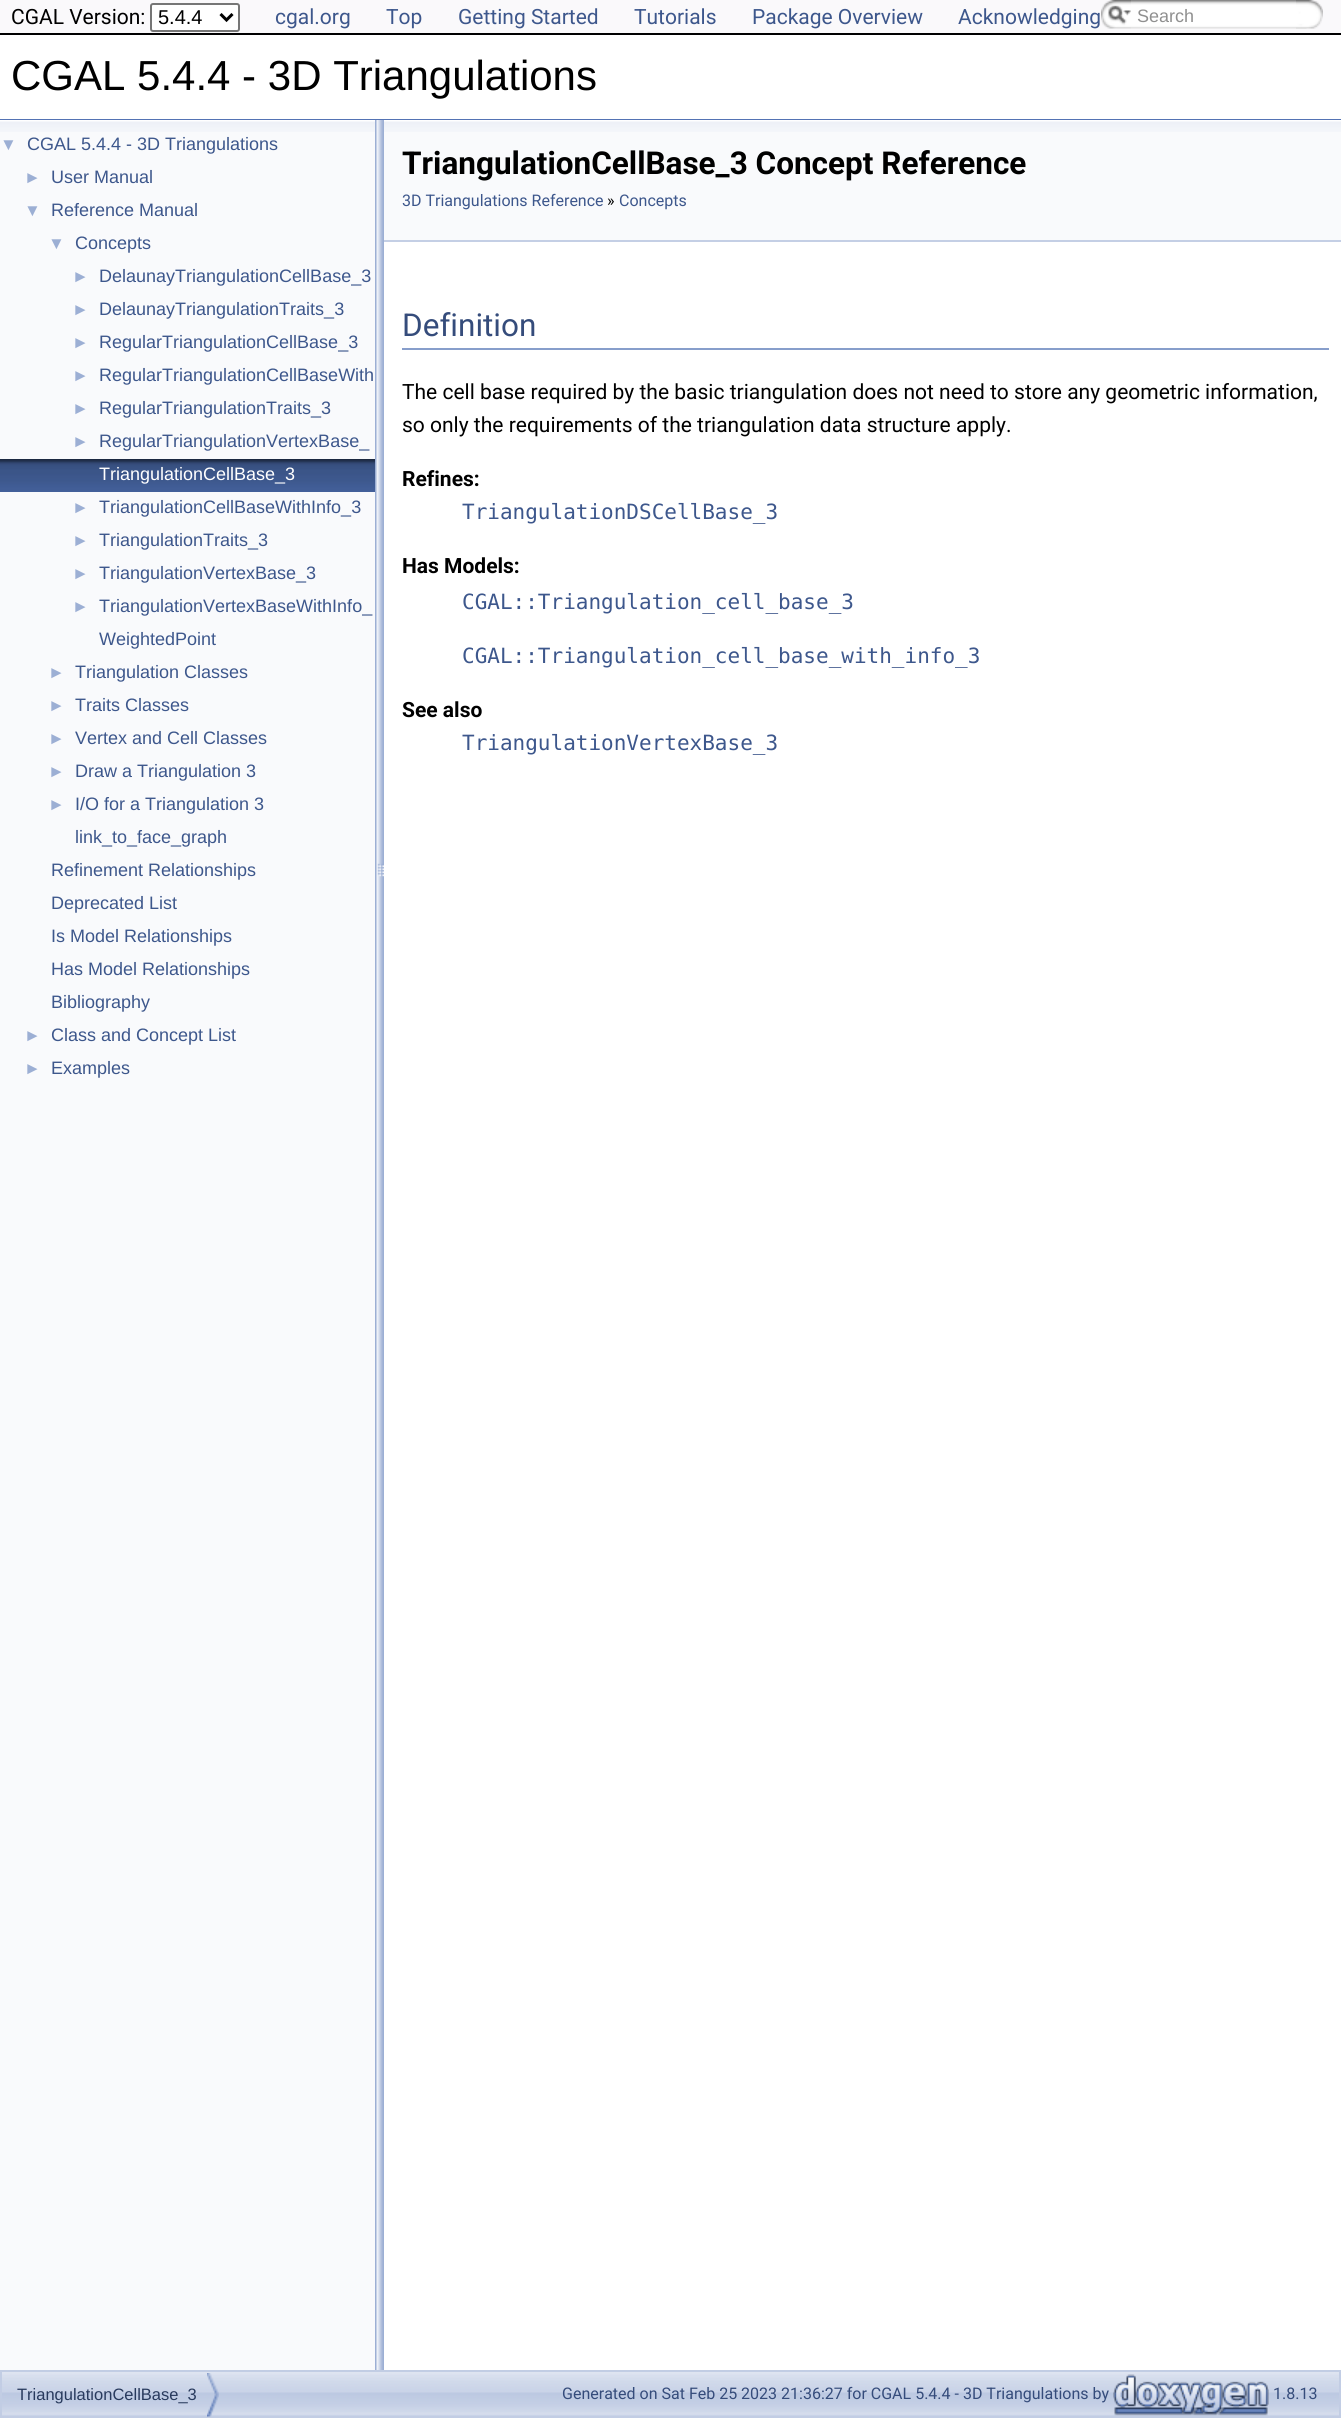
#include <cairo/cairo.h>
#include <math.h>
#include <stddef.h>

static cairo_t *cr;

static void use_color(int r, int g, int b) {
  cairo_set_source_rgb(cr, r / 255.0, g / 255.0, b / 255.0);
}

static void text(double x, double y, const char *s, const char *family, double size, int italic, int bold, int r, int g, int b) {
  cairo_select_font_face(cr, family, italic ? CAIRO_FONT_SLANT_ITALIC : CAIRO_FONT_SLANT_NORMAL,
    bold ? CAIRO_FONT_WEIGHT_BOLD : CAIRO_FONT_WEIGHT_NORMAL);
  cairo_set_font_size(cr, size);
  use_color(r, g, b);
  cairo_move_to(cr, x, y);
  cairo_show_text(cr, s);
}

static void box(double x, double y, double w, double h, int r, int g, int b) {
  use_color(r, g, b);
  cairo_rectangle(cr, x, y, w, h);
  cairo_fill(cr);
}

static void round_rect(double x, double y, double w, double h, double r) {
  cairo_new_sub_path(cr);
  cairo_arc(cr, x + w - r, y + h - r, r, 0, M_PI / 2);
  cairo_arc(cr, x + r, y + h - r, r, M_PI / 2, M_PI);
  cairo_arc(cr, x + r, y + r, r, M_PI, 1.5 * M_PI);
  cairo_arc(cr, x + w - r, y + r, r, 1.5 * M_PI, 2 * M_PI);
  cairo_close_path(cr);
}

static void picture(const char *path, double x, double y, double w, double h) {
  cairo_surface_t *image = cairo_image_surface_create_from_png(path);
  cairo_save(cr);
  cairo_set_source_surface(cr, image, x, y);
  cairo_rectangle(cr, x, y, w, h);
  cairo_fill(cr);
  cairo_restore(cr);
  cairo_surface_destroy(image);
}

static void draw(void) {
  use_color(255, 255, 255);
  cairo_paint(cr);
  box(0, 0, 1341, 33, 250, 249, 251);
  box(0, 33, 1341, 2, 0, 0, 0);
  use_color(255, 255, 255);
  round_rect(151, 4, 88, 27, 2);
  cairo_fill_preserve(cr);
  use_color(118, 118, 118);
  cairo_stroke(cr);
  cairo_new_path(cr);
  cairo_move_to(cr, 220.5, 14);
  cairo_line_to(cr, 226.5, 20);
  cairo_line_to(cr, 232.5, 14);
  use_color(0, 0, 0);
  cairo_set_line_width(cr, 3);
  cairo_stroke(cr);
  picture("img_01.png", 1101, 0, 30, 29);
  picture("img_02.png", 1108, 5, 23, 20);
  picture("img_03.png", 1131, 0, 176, 29);
  picture("img_04.png", 1296, 0, 27, 29);
  box(0, 119, 1341, 1, 83, 115, 180);
  box(0, 132, 375, 2238, 249, 250, 252);
  picture("img_05.png", 0, 120, 375, 12);
  picture("img_06.png", 0, 459, 375, 33);
  picture("img_07.png", 375, 120, 9, 2250);
  box(384, 132, 957, 108, 249, 250, 252);
  picture("img_08.png", 384, 120, 957, 12);
  box(384, 240, 957, 2, 196, 207, 229);
  box(402, 348, 927, 2, 135, 158, 203);
  picture("img_09.png", 2, 2372, 1337, 44);
  cairo_rectangle(cr, 1, 2371, 1339, 46);
  use_color(194, 205, 228);
  cairo_set_line_width(cr, 2);
  cairo_stroke(cr);
  picture("img_10.png", 207, 2373, 12, 44);
  picture("img_11.png", 1113, 2374, 156, 42);
  text(11, 24, "CGAL Version:", "Roboto", 21, 0, 0, 0, 0, 0);
  text(158, 24, "5.4.4", "Liberation Sans", 20, 0, 0, 0, 0, 0);
  text(275, 24, "cgal.org", "Roboto", 21, 0, 0, 61, 87, 140);
  text(386, 24, "Top", "Roboto", 21, 0, 0, 61, 87, 140);
  text(458, 24, "Getting Started", "Roboto", 21, 0, 0, 61, 87, 140);
  text(634, 24, "Tutorials", "Roboto", 21, 0, 0, 61, 87, 140);
  text(752, 24, "Package Overview", "Roboto", 21, 0, 0, 61, 87, 140);
  text(958, 24, "Acknowledging", "Roboto", 21, 0, 0, 61, 87, 140);
  text(1137, 22, "Search", "Liberation Sans", 18, 0, 0, 144, 144, 144);
  text(11, 90, "CGAL 5.4.4 - 3D Triangulations", "Liberation Sans", 42, 0, 0, 0, 0, 0);
  text(0, 150, "▼", "Liberation Sans", 17, 0, 0, 156, 175, 212);
  text(27, 150, "CGAL 5.4.4 - 3D Triangulations", "Liberation Sans", 18, 0, 0, 61, 87, 140);
  text(24, 183, "►", "Liberation Sans", 17, 0, 0, 156, 175, 212);
  text(51, 183, "User Manual", "Liberation Sans", 18, 0, 0, 61, 87, 140);
  text(24, 216, "▼", "Liberation Sans", 17, 0, 0, 156, 175, 212);
  text(51, 216, "Reference Manual", "Liberation Sans", 18, 0, 0, 61, 87, 140);
  text(48, 249, "▼", "Liberation Sans", 17, 0, 0, 156, 175, 212);
  text(75, 249, "Concepts", "Liberation Sans", 18, 0, 0, 61, 87, 140);
  text(72, 282, "►", "Liberation Sans", 17, 0, 0, 156, 175, 212);
  text(99, 282, "DelaunayTriangulationCellBase_3", "Liberation Sans", 18, 0, 0, 61, 87, 140);
  text(72, 315, "►", "Liberation Sans", 17, 0, 0, 156, 175, 212);
  text(99, 315, "DelaunayTriangulationTraits_3", "Liberation Sans", 18, 0, 0, 61, 87, 140);
  text(72, 348, "►", "Liberation Sans", 17, 0, 0, 156, 175, 212);
  text(99, 348, "RegularTriangulationCellBase_3", "Liberation Sans", 18, 0, 0, 61, 87, 140);
  text(72, 381, "►", "Liberation Sans", 17, 0, 0, 156, 175, 212);
  text(99, 381, "RegularTriangulationCellBaseWith", "Liberation Sans", 18, 0, 0, 61, 87, 140);
  text(72, 414, "►", "Liberation Sans", 17, 0, 0, 156, 175, 212);
  text(99, 414, "RegularTriangulationTraits_3", "Liberation Sans", 18, 0, 0, 61, 87, 140);
  text(72, 447, "►", "Liberation Sans", 17, 0, 0, 156, 175, 212);
  text(99, 447, "RegularTriangulationVertexBase_", "Liberation Sans", 18, 0, 0, 61, 87, 140);
  text(99, 480, "TriangulationCellBase_3", "Liberation Sans", 18, 0, 0, 255, 255, 255);
  text(72, 513, "►", "Liberation Sans", 17, 0, 0, 156, 175, 212);
  text(99, 513, "TriangulationCellBaseWithInfo_3", "Liberation Sans", 18, 0, 0, 61, 87, 140);
  text(72, 546, "►", "Liberation Sans", 17, 0, 0, 156, 175, 212);
  text(99, 546, "TriangulationTraits_3", "Liberation Sans", 18, 0, 0, 61, 87, 140);
  text(72, 579, "►", "Liberation Sans", 17, 0, 0, 156, 175, 212);
  text(99, 579, "TriangulationVertexBase_3", "Liberation Sans", 18, 0, 0, 61, 87, 140);
  text(72, 612, "►", "Liberation Sans", 17, 0, 0, 156, 175, 212);
  text(99, 612, "TriangulationVertexBaseWithInfo_", "Liberation Sans", 18, 0, 0, 61, 87, 140);
  text(99, 645, "WeightedPoint", "Liberation Sans", 18, 0, 0, 61, 87, 140);
  text(48, 678, "►", "Liberation Sans", 17, 0, 0, 156, 175, 212);
  text(75, 678, "Triangulation Classes", "Liberation Sans", 18, 0, 0, 61, 87, 140);
  text(48, 711, "►", "Liberation Sans", 17, 0, 0, 156, 175, 212);
  text(75, 711, "Traits Classes", "Liberation Sans", 18, 0, 0, 61, 87, 140);
  text(48, 744, "►", "Liberation Sans", 17, 0, 0, 156, 175, 212);
  text(75, 744, "Vertex and Cell Classes", "Liberation Sans", 18, 0, 0, 61, 87, 140);
  text(48, 777, "►", "Liberation Sans", 17, 0, 0, 156, 175, 212);
  text(75, 777, "Draw a Triangulation 3", "Liberation Sans", 18, 0, 0, 61, 87, 140);
  text(48, 810, "►", "Liberation Sans", 17, 0, 0, 156, 175, 212);
  text(75, 810, "I/O for a Triangulation 3", "Liberation Sans", 18, 0, 0, 61, 87, 140);
  text(75, 843, "link_to_face_graph", "Liberation Sans", 18, 0, 0, 61, 87, 140);
  text(51, 876, "Refinement Relationships", "Liberation Sans", 18, 0, 0, 61, 87, 140);
  text(51, 909, "Deprecated List", "Liberation Sans", 18, 0, 0, 61, 87, 140);
  text(51, 942, "Is Model Relationships", "Liberation Sans", 18, 0, 0, 61, 87, 140);
  text(51, 975, "Has Model Relationships", "Liberation Sans", 18, 0, 0, 61, 87, 140);
  text(51, 1008, "Bibliography", "Liberation Sans", 18, 0, 0, 61, 87, 140);
  text(24, 1041, "►", "Liberation Sans", 17, 0, 0, 156, 175, 212);
  text(51, 1041, "Class and Concept List", "Liberation Sans", 18, 0, 0, 61, 87, 140);
  text(24, 1074, "►", "Liberation Sans", 17, 0, 0, 156, 175, 212);
  text(51, 1074, "Examples", "Liberation Sans", 18, 0, 0, 61, 87, 140);
  text(402, 174, "TriangulationCellBase_3 Concept Reference", "Roboto", 31.5, 0, 1, 0, 0, 0);
  text(402, 206, "3D Triangulations Reference", "Roboto", 16, 0, 0, 61, 87, 140);
  text(607, 206, "»", "Roboto", 16, 0, 0, 0, 0, 0);
  text(619, 206, "Concepts", "Roboto", 16, 0, 0, 61, 87, 140);
  text(402, 336, "Definition", "Roboto", 31.5, 0, 0, 53, 76, 123);
  text(402, 399, "The cell base required by the basic triangulation does not need to store any geometric information,", "Roboto", 21, 0, 0, 0, 0, 0);
  text(402, 432, "so only the requirements of the triangulation data structure apply.", "Roboto", 21, 0, 0, 0, 0, 0);
  text(402, 486, "Refines:", "Roboto", 21, 0, 1, 0, 0, 0);
  text(462, 519, "TriangulationDSCellBase_3", "DejaVu Sans Mono", 21, 0, 0, 61, 87, 140);
  text(402, 573, "Has Models:", "Roboto", 21, 0, 1, 0, 0, 0);
  text(462, 609, "CGAL::Triangulation_cell_base_3", "DejaVu Sans Mono", 21, 0, 0, 61, 87, 140);
  text(462, 663, "CGAL::Triangulation_cell_base_with_info_3", "DejaVu Sans Mono", 21, 0, 0, 61, 87, 140);
  text(402, 717, "See also", "Roboto", 21, 0, 1, 0, 0, 0);
  text(462, 750, "TriangulationVertexBase_3", "DejaVu Sans Mono", 21, 0, 0, 61, 87, 140);
  text(17, 2400, "TriangulationCellBase_3", "Liberation Sans", 16.5, 0, 0, 40, 58, 93);
  text(562, 2399, "Generated on Sat Feb 25 2023 21:36:27 for CGAL 5.4.4 - 3D Triangulations by", "Roboto", 16, 0, 0, 53, 76, 123);
  text(1273, 2399, "1.8.13", "Roboto", 16, 0, 0, 53, 76, 123);
}

int main(void) {
  cairo_surface_t *surface = cairo_image_surface_create(CAIRO_FORMAT_RGB24, 1341, 2418);
  cr = cairo_create(surface);
  cairo_font_options_t *options = cairo_font_options_create();
  cairo_font_options_set_hint_metrics(options, CAIRO_HINT_METRICS_OFF);
  cairo_font_options_set_hint_style(options, CAIRO_HINT_STYLE_NONE);
  cairo_set_font_options(cr, options);
  cairo_set_miter_limit(cr, 4);
  draw();
  cairo_surface_write_to_png(surface, "out.png");
  cairo_font_options_destroy(options);
  cairo_destroy(cr);
  cairo_surface_destroy(surface);
  return 0;
}
